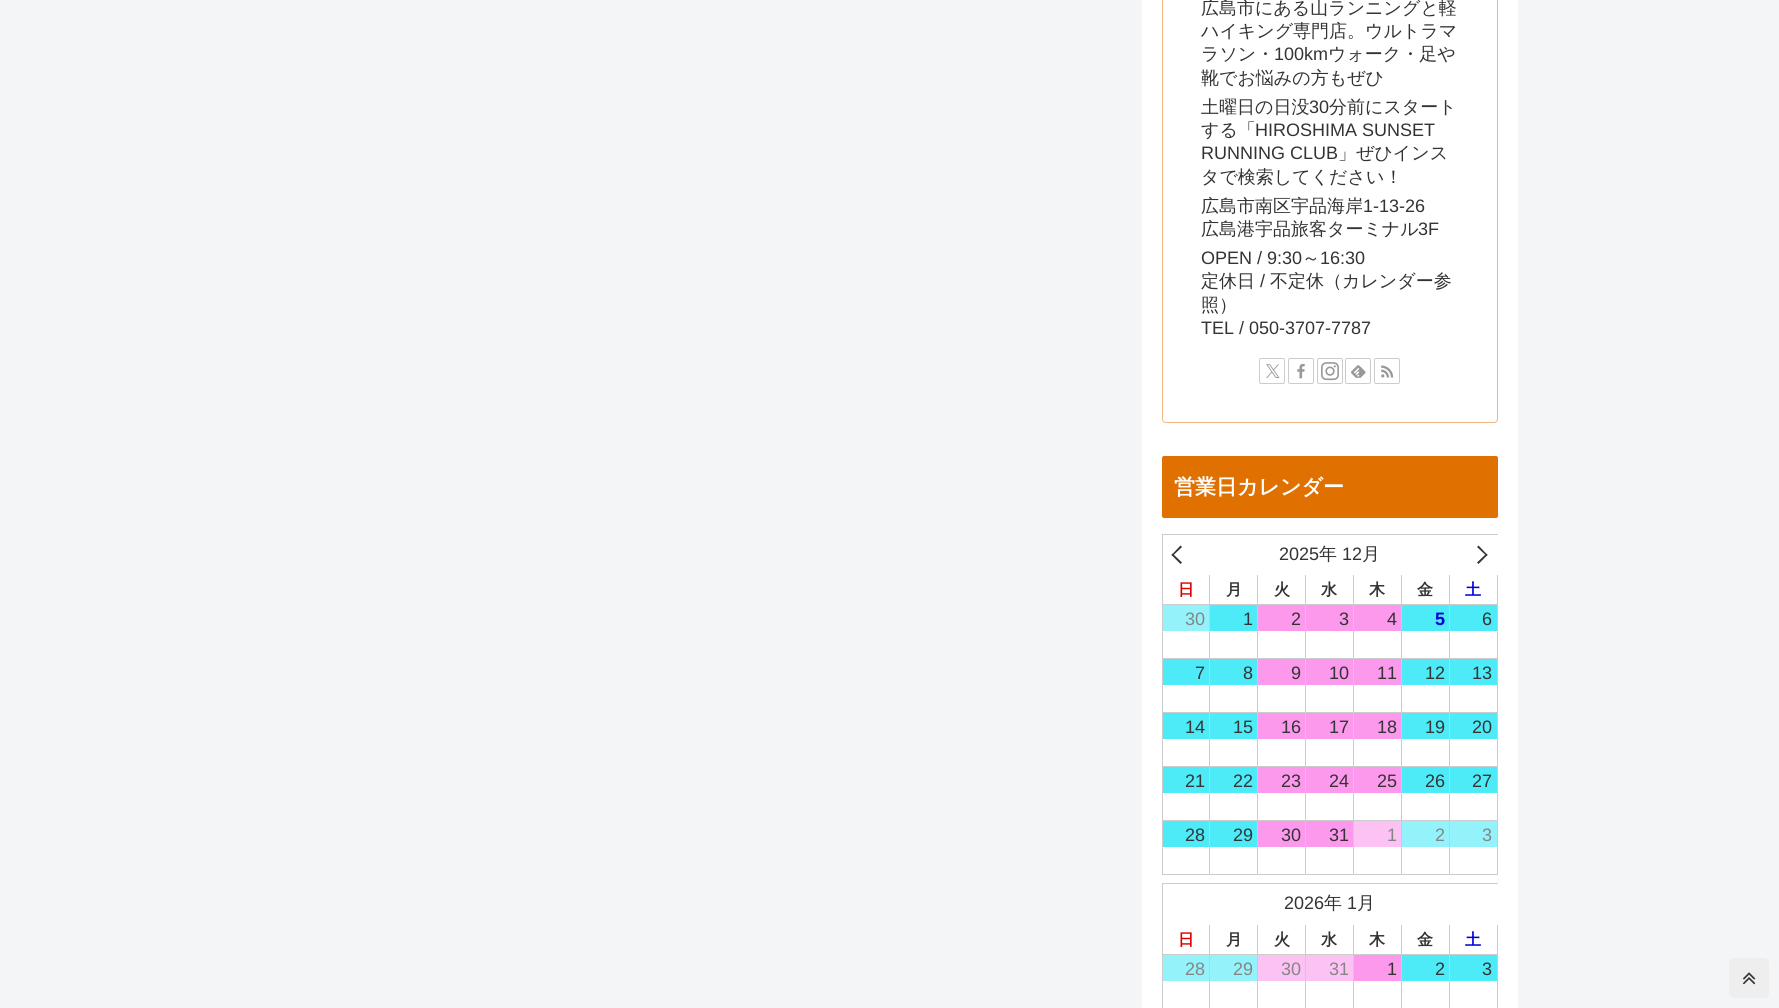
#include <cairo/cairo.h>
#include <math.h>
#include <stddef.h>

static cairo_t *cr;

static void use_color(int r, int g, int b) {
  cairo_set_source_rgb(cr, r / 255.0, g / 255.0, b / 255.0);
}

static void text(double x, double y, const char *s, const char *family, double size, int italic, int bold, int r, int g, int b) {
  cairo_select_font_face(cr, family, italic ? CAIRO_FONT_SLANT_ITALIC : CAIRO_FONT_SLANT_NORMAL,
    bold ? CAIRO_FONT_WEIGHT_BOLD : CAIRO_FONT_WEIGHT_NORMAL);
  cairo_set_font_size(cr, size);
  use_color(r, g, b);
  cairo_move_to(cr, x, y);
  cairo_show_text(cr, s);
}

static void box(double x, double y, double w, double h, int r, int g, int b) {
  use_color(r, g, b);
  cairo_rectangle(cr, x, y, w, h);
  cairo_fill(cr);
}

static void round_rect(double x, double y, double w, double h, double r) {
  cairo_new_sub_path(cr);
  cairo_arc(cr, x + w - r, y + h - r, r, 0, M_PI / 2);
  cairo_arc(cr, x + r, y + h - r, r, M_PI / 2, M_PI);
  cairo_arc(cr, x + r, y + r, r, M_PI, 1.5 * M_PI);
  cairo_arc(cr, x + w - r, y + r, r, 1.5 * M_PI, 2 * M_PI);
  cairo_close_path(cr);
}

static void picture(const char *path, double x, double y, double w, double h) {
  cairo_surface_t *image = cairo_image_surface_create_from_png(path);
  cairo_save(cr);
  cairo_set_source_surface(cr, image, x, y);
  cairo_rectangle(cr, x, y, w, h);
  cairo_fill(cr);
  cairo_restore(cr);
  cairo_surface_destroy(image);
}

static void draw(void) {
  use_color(244, 245, 247);
  cairo_paint(cr);
  box(1142, 0, 376, 1008, 255, 255, 255);
  round_rect(1162.5, -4.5, 335, 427, 3.5);
  use_color(240, 184, 128);
  cairo_set_line_width(cr, 1);
  cairo_stroke(cr);
  round_rect(1259.5, 358.5, 25, 25, 1.5);
  use_color(204, 204, 204);
  cairo_stroke(cr);
  picture("img_01.png", 1266, 364, 14, 14);
  round_rect(1288.5, 358.5, 25, 25, 1.5);
  cairo_stroke(cr);
  picture("img_02.png", 1297, 364, 8, 15);
  round_rect(1317.5, 358.5, 25, 25, 1.5);
  cairo_stroke(cr);
  picture("img_03.png", 1321, 362, 18, 19);
  round_rect(1345.5, 358.5, 25, 25, 1.5);
  cairo_stroke(cr);
  picture("img_04.png", 1351, 365, 15, 13);
  round_rect(1374.5, 358.5, 25, 25, 1.5);
  cairo_stroke(cr);
  picture("img_05.png", 1381, 365, 13, 13);
  use_color(224, 112, 0);
  round_rect(1162, 456, 336, 62, 2);
  cairo_fill(cr);
  box(1162, 534, 336, 1, 204, 204, 204);
  box(1162, 874, 336, 1, 204, 204, 204);
  box(1162, 534, 1, 341, 204, 204, 204);
  use_color(51, 51, 51);
  cairo_new_path(cr);
  cairo_move_to(cr, 1172.5, 553.5);
  cairo_line_to(cr, 1182, 562.5);
  cairo_line_to(cr, 1180.5, 564);
  cairo_line_to(cr, 1171.5, 555);
  cairo_close_path(cr);
  cairo_fill(cr);
  cairo_new_path(cr);
  cairo_move_to(cr, 1180.5, 545.5);
  cairo_line_to(cr, 1182, 547);
  cairo_line_to(cr, 1172.5, 556);
  cairo_line_to(cr, 1171.5, 555);
  cairo_close_path(cr);
  cairo_fill(cr);
  cairo_new_path(cr);
  cairo_move_to(cr, 1478.5, 545.5);
  cairo_line_to(cr, 1487.5, 555);
  cairo_line_to(cr, 1486.5, 556);
  cairo_line_to(cr, 1477, 547);
  cairo_close_path(cr);
  cairo_fill(cr);
  cairo_new_path(cr);
  cairo_move_to(cr, 1486.5, 553.5);
  cairo_line_to(cr, 1487.5, 555);
  cairo_line_to(cr, 1478.5, 564);
  cairo_line_to(cr, 1477, 562.5);
  cairo_close_path(cr);
  cairo_fill(cr);
  box(1209, 575, 1, 29, 204, 204, 204);
  box(1257, 575, 1, 29, 204, 204, 204);
  box(1305, 575, 1, 29, 204, 204, 204);
  box(1353, 575, 1, 29, 204, 204, 204);
  box(1401, 575, 1, 29, 204, 204, 204);
  box(1449, 575, 1, 29, 204, 204, 204);
  box(1497, 575, 1, 29, 204, 204, 204);
  box(1163, 604, 335, 1, 204, 204, 204);
  box(1209, 604, 1, 54, 204, 204, 204);
  box(1163, 605, 46, 26, 148, 243, 250);
  box(1257, 604, 1, 54, 204, 204, 204);
  box(1210, 605, 47, 26, 76, 235, 247);
  box(1305, 604, 1, 54, 204, 204, 204);
  box(1258, 605, 47, 26, 252, 153, 236);
  box(1353, 604, 1, 54, 204, 204, 204);
  box(1306, 605, 47, 26, 252, 153, 236);
  box(1401, 604, 1, 54, 204, 204, 204);
  box(1354, 605, 47, 26, 252, 153, 236);
  box(1449, 604, 1, 54, 204, 204, 204);
  box(1402, 605, 47, 26, 76, 235, 247);
  box(1497, 604, 1, 54, 204, 204, 204);
  box(1450, 605, 47, 26, 76, 235, 247);
  box(1163, 658, 335, 1, 204, 204, 204);
  box(1209, 658, 1, 54, 204, 204, 204);
  box(1163, 659, 46, 26, 76, 235, 247);
  box(1257, 658, 1, 54, 204, 204, 204);
  box(1210, 659, 47, 26, 76, 235, 247);
  box(1305, 658, 1, 54, 204, 204, 204);
  box(1258, 659, 47, 26, 252, 153, 236);
  box(1353, 658, 1, 54, 204, 204, 204);
  box(1306, 659, 47, 26, 252, 153, 236);
  box(1401, 658, 1, 54, 204, 204, 204);
  box(1354, 659, 47, 26, 252, 153, 236);
  box(1449, 658, 1, 54, 204, 204, 204);
  box(1402, 659, 47, 26, 76, 235, 247);
  box(1497, 658, 1, 54, 204, 204, 204);
  box(1450, 659, 47, 26, 76, 235, 247);
  box(1163, 712, 335, 1, 204, 204, 204);
  box(1209, 712, 1, 54, 204, 204, 204);
  box(1163, 713, 46, 26, 76, 235, 247);
  box(1257, 712, 1, 54, 204, 204, 204);
  box(1210, 713, 47, 26, 76, 235, 247);
  box(1305, 712, 1, 54, 204, 204, 204);
  box(1258, 713, 47, 26, 252, 153, 236);
  box(1353, 712, 1, 54, 204, 204, 204);
  box(1306, 713, 47, 26, 252, 153, 236);
  box(1401, 712, 1, 54, 204, 204, 204);
  box(1354, 713, 47, 26, 252, 153, 236);
  box(1449, 712, 1, 54, 204, 204, 204);
  box(1402, 713, 47, 26, 76, 235, 247);
  box(1497, 712, 1, 54, 204, 204, 204);
  box(1450, 713, 47, 26, 76, 235, 247);
  box(1163, 766, 335, 1, 204, 204, 204);
  box(1209, 766, 1, 54, 204, 204, 204);
  box(1163, 767, 46, 26, 76, 235, 247);
  box(1257, 766, 1, 54, 204, 204, 204);
  box(1210, 767, 47, 26, 76, 235, 247);
  box(1305, 766, 1, 54, 204, 204, 204);
  box(1258, 767, 47, 26, 252, 153, 236);
  box(1353, 766, 1, 54, 204, 204, 204);
  box(1306, 767, 47, 26, 252, 153, 236);
  box(1401, 766, 1, 54, 204, 204, 204);
  box(1354, 767, 47, 26, 252, 153, 236);
  box(1449, 766, 1, 54, 204, 204, 204);
  box(1402, 767, 47, 26, 76, 235, 247);
  box(1497, 766, 1, 54, 204, 204, 204);
  box(1450, 767, 47, 26, 76, 235, 247);
  box(1163, 820, 335, 1, 204, 204, 204);
  box(1209, 820, 1, 54, 204, 204, 204);
  box(1163, 821, 46, 26, 76, 235, 247);
  box(1257, 820, 1, 54, 204, 204, 204);
  box(1210, 821, 47, 26, 76, 235, 247);
  box(1305, 820, 1, 54, 204, 204, 204);
  box(1258, 821, 47, 26, 252, 153, 236);
  box(1353, 820, 1, 54, 204, 204, 204);
  box(1306, 821, 47, 26, 252, 153, 236);
  box(1401, 820, 1, 54, 204, 204, 204);
  box(1354, 821, 47, 26, 253, 194, 244);
  box(1449, 820, 1, 54, 204, 204, 204);
  box(1402, 821, 47, 26, 148, 243, 250);
  box(1497, 820, 1, 54, 204, 204, 204);
  box(1450, 821, 47, 26, 148, 243, 250);
  box(1162, 883, 336, 1, 204, 204, 204);
  box(1162, 883, 1, 125, 204, 204, 204);
  box(1209, 925, 1, 29, 204, 204, 204);
  box(1257, 925, 1, 29, 204, 204, 204);
  box(1305, 925, 1, 29, 204, 204, 204);
  box(1353, 925, 1, 29, 204, 204, 204);
  box(1401, 925, 1, 29, 204, 204, 204);
  box(1449, 925, 1, 29, 204, 204, 204);
  box(1497, 925, 1, 29, 204, 204, 204);
  box(1163, 954, 335, 1, 204, 204, 204);
  box(1209, 954, 1, 54, 204, 204, 204);
  box(1163, 955, 46, 26, 148, 243, 250);
  box(1257, 954, 1, 54, 204, 204, 204);
  box(1210, 955, 47, 26, 148, 243, 250);
  box(1305, 954, 1, 54, 204, 204, 204);
  box(1258, 955, 47, 26, 253, 194, 244);
  box(1353, 954, 1, 54, 204, 204, 204);
  box(1306, 955, 47, 26, 253, 194, 244);
  box(1401, 954, 1, 54, 204, 204, 204);
  box(1354, 955, 47, 26, 252, 153, 236);
  box(1449, 954, 1, 54, 204, 204, 204);
  box(1402, 955, 47, 26, 76, 235, 247);
  box(1497, 954, 1, 54, 204, 204, 204);
  box(1450, 955, 47, 26, 76, 235, 247);
  use_color(238, 238, 238);
  round_rect(1729, 958, 40, 40, 5);
  cairo_fill(cr);
  picture("img_06.png", 1743, 972, 13, 13);
  text(1201, 14, "広島市にある山ランニングと軽", "WenQuanYi Zen Hei Medium", 18, 0, 0, 51, 51, 51);
  text(1201, 37, "ハイキング専門店。ウルトラマ", "WenQuanYi Zen Hei Medium", 18, 0, 0, 51, 51, 51);
  text(1201, 60, "ラソン・", "WenQuanYi Zen Hei Medium", 18, 0, 0, 51, 51, 51);
  text(1274, 60, "100km", "Liberation Sans", 18, 0, 0, 51, 51, 51);
  text(1328, 60, "ウォーク・足や", "WenQuanYi Zen Hei Medium", 18, 0, 0, 51, 51, 51);
  text(1201, 84, "靴でお悩みの方もぜひ", "WenQuanYi Zen Hei Medium", 18, 0, 0, 51, 51, 51);
  text(1201, 113, "土曜日の日没", "WenQuanYi Zen Hei Medium", 18, 0, 0, 51, 51, 51);
  text(1309, 113, "30", "Liberation Sans", 18, 0, 0, 51, 51, 51);
  text(1329, 113, "分前にスタート", "WenQuanYi Zen Hei Medium", 18, 0, 0, 51, 51, 51);
  text(1201, 136, "する「", "WenQuanYi Zen Hei Medium", 18, 0, 0, 51, 51, 51);
  text(1255, 136, "HIROSHIMA SUNSET", "Liberation Sans", 18, 0, 0, 51, 51, 51);
  text(1201, 159, "RUNNING CLUB", "Liberation Sans", 18, 0, 0, 51, 51, 51);
  text(1338, 159, "」ぜひインス", "WenQuanYi Zen Hei Medium", 18, 0, 0, 51, 51, 51);
  text(1201, 183, "タで検索してください！", "WenQuanYi Zen Hei Medium", 18, 0, 0, 51, 51, 51);
  text(1201, 212, "広島市南区宇品海岸", "WenQuanYi Zen Hei Medium", 18, 0, 0, 51, 51, 51);
  text(1363, 212, "1-13-26", "Liberation Sans", 18, 0, 0, 51, 51, 51);
  text(1201, 235, "広島港宇品旅客ターミナル", "WenQuanYi Zen Hei Medium", 18, 0, 0, 51, 51, 51);
  text(1418, 235, "3F", "Liberation Sans", 18, 0, 0, 51, 51, 51);
  text(1201, 264, "OPEN / 9:30", "Liberation Sans", 18, 0, 0, 51, 51, 51);
  text(1302, 264, "～", "WenQuanYi Zen Hei Medium", 18, 0, 0, 51, 51, 51);
  text(1320, 264, "16:30", "Liberation Sans", 18, 0, 0, 51, 51, 51);
  text(1201, 287, "定休日", "WenQuanYi Zen Hei Medium", 18, 0, 0, 51, 51, 51);
  text(1260, 287, "/", "Liberation Sans", 18, 0, 0, 51, 51, 51);
  text(1270, 287, "不定休（カレンダー参", "WenQuanYi Zen Hei Medium", 18, 0, 0, 51, 51, 51);
  text(1201, 311, "照）", "WenQuanYi Zen Hei Medium", 18, 0, 0, 51, 51, 51);
  text(1201, 334, "TEL / 050-3707-7787", "Liberation Sans", 18, 0, 0, 51, 51, 51);
  text(1174, 494, "営業日カレンダー", "WenQuanYi Zen Hei", 21, 0, 1, 255, 255, 255);
  text(1279, 560, "2025", "Liberation Sans", 18, 0, 0, 51, 51, 51);
  text(1319, 560, "年", "WenQuanYi Zen Hei Medium", 18, 0, 0, 51, 51, 51);
  text(1342, 560, "12", "Liberation Sans", 18, 0, 0, 51, 51, 51);
  text(1362, 560, "月", "WenQuanYi Zen Hei Medium", 18, 0, 0, 51, 51, 51);
  text(1178, 595, "日", "WenQuanYi Zen Hei", 16, 0, 1, 221, 0, 0);
  text(1226, 595, "月", "WenQuanYi Zen Hei", 16, 0, 1, 51, 51, 51);
  text(1274, 595, "火", "WenQuanYi Zen Hei", 16, 0, 1, 51, 51, 51);
  text(1321, 595, "水", "WenQuanYi Zen Hei", 16, 0, 1, 51, 51, 51);
  text(1369, 595, "木", "WenQuanYi Zen Hei", 16, 0, 1, 51, 51, 51);
  text(1417, 595, "金", "WenQuanYi Zen Hei", 16, 0, 1, 51, 51, 51);
  text(1465, 595, "土", "WenQuanYi Zen Hei", 16, 0, 1, 0, 0, 221);
  text(1185, 625, "30", "Liberation Sans", 18, 0, 0, 133, 133, 133);
  text(1243, 625, "1", "Liberation Sans", 18, 0, 0, 51, 51, 51);
  text(1291, 625, "2", "Liberation Sans", 18, 0, 0, 51, 51, 51);
  text(1339, 625, "3", "Liberation Sans", 18, 0, 0, 51, 51, 51);
  text(1387, 625, "4", "Liberation Sans", 18, 0, 0, 51, 51, 51);
  text(1435, 625, "5", "Liberation Sans", 18, 0, 1, 0, 0, 221);
  text(1482, 625, "6", "Liberation Sans", 18, 0, 0, 51, 51, 51);
  text(1195, 679, "7", "Liberation Sans", 18, 0, 0, 51, 51, 51);
  text(1243, 679, "8", "Liberation Sans", 18, 0, 0, 51, 51, 51);
  text(1291, 679, "9", "Liberation Sans", 18, 0, 0, 51, 51, 51);
  text(1329, 679, "10", "Liberation Sans", 18, 0, 0, 51, 51, 51);
  text(1377, 679, "11", "Liberation Sans", 18, 0, 0, 51, 51, 51);
  text(1425, 679, "12", "Liberation Sans", 18, 0, 0, 51, 51, 51);
  text(1472, 679, "13", "Liberation Sans", 18, 0, 0, 51, 51, 51);
  text(1185, 733, "14", "Liberation Sans", 18, 0, 0, 51, 51, 51);
  text(1233, 733, "15", "Liberation Sans", 18, 0, 0, 51, 51, 51);
  text(1281, 733, "16", "Liberation Sans", 18, 0, 0, 51, 51, 51);
  text(1329, 733, "17", "Liberation Sans", 18, 0, 0, 51, 51, 51);
  text(1377, 733, "18", "Liberation Sans", 18, 0, 0, 51, 51, 51);
  text(1425, 733, "19", "Liberation Sans", 18, 0, 0, 51, 51, 51);
  text(1472, 733, "20", "Liberation Sans", 18, 0, 0, 51, 51, 51);
  text(1185, 787, "21", "Liberation Sans", 18, 0, 0, 51, 51, 51);
  text(1233, 787, "22", "Liberation Sans", 18, 0, 0, 51, 51, 51);
  text(1281, 787, "23", "Liberation Sans", 18, 0, 0, 51, 51, 51);
  text(1329, 787, "24", "Liberation Sans", 18, 0, 0, 51, 51, 51);
  text(1377, 787, "25", "Liberation Sans", 18, 0, 0, 51, 51, 51);
  text(1425, 787, "26", "Liberation Sans", 18, 0, 0, 51, 51, 51);
  text(1472, 787, "27", "Liberation Sans", 18, 0, 0, 51, 51, 51);
  text(1185, 841, "28", "Liberation Sans", 18, 0, 0, 51, 51, 51);
  text(1233, 841, "29", "Liberation Sans", 18, 0, 0, 51, 51, 51);
  text(1281, 841, "30", "Liberation Sans", 18, 0, 0, 51, 51, 51);
  text(1329, 841, "31", "Liberation Sans", 18, 0, 0, 51, 51, 51);
  text(1387, 841, "1", "Liberation Sans", 18, 0, 0, 133, 133, 133);
  text(1435, 841, "2", "Liberation Sans", 18, 0, 0, 133, 133, 133);
  text(1482, 841, "3", "Liberation Sans", 18, 0, 0, 133, 133, 133);
  text(1284, 909, "2026", "Liberation Sans", 18, 0, 0, 51, 51, 51);
  text(1324, 909, "年", "WenQuanYi Zen Hei Medium", 18, 0, 0, 51, 51, 51);
  text(1347, 909, "1", "Liberation Sans", 18, 0, 0, 51, 51, 51);
  text(1357, 909, "月", "WenQuanYi Zen Hei Medium", 18, 0, 0, 51, 51, 51);
  text(1178, 945, "日", "WenQuanYi Zen Hei", 16, 0, 1, 221, 0, 0);
  text(1226, 945, "月", "WenQuanYi Zen Hei", 16, 0, 1, 51, 51, 51);
  text(1274, 945, "火", "WenQuanYi Zen Hei", 16, 0, 1, 51, 51, 51);
  text(1321, 945, "水", "WenQuanYi Zen Hei", 16, 0, 1, 51, 51, 51);
  text(1369, 945, "木", "WenQuanYi Zen Hei", 16, 0, 1, 51, 51, 51);
  text(1417, 945, "金", "WenQuanYi Zen Hei", 16, 0, 1, 51, 51, 51);
  text(1465, 945, "土", "WenQuanYi Zen Hei", 16, 0, 1, 0, 0, 221);
  text(1185, 975, "28", "Liberation Sans", 18, 0, 0, 133, 133, 133);
  text(1233, 975, "29", "Liberation Sans", 18, 0, 0, 133, 133, 133);
  text(1281, 975, "30", "Liberation Sans", 18, 0, 0, 133, 133, 133);
  text(1329, 975, "31", "Liberation Sans", 18, 0, 0, 133, 133, 133);
  text(1387, 975, "1", "Liberation Sans", 18, 0, 0, 51, 51, 51);
  text(1435, 975, "2", "Liberation Sans", 18, 0, 0, 51, 51, 51);
  text(1482, 975, "3", "Liberation Sans", 18, 0, 0, 51, 51, 51);
}

int main(void) {
  cairo_surface_t *surface = cairo_image_surface_create(CAIRO_FORMAT_RGB24, 1779, 1008);
  cr = cairo_create(surface);
  cairo_font_options_t *options = cairo_font_options_create();
  cairo_font_options_set_hint_metrics(options, CAIRO_HINT_METRICS_OFF);
  cairo_font_options_set_hint_style(options, CAIRO_HINT_STYLE_NONE);
  cairo_set_font_options(cr, options);
  cairo_set_miter_limit(cr, 4);
  draw();
  cairo_surface_write_to_png(surface, "out.png");
  cairo_font_options_destroy(options);
  cairo_destroy(cr);
  cairo_surface_destroy(surface);
  return 0;
}
